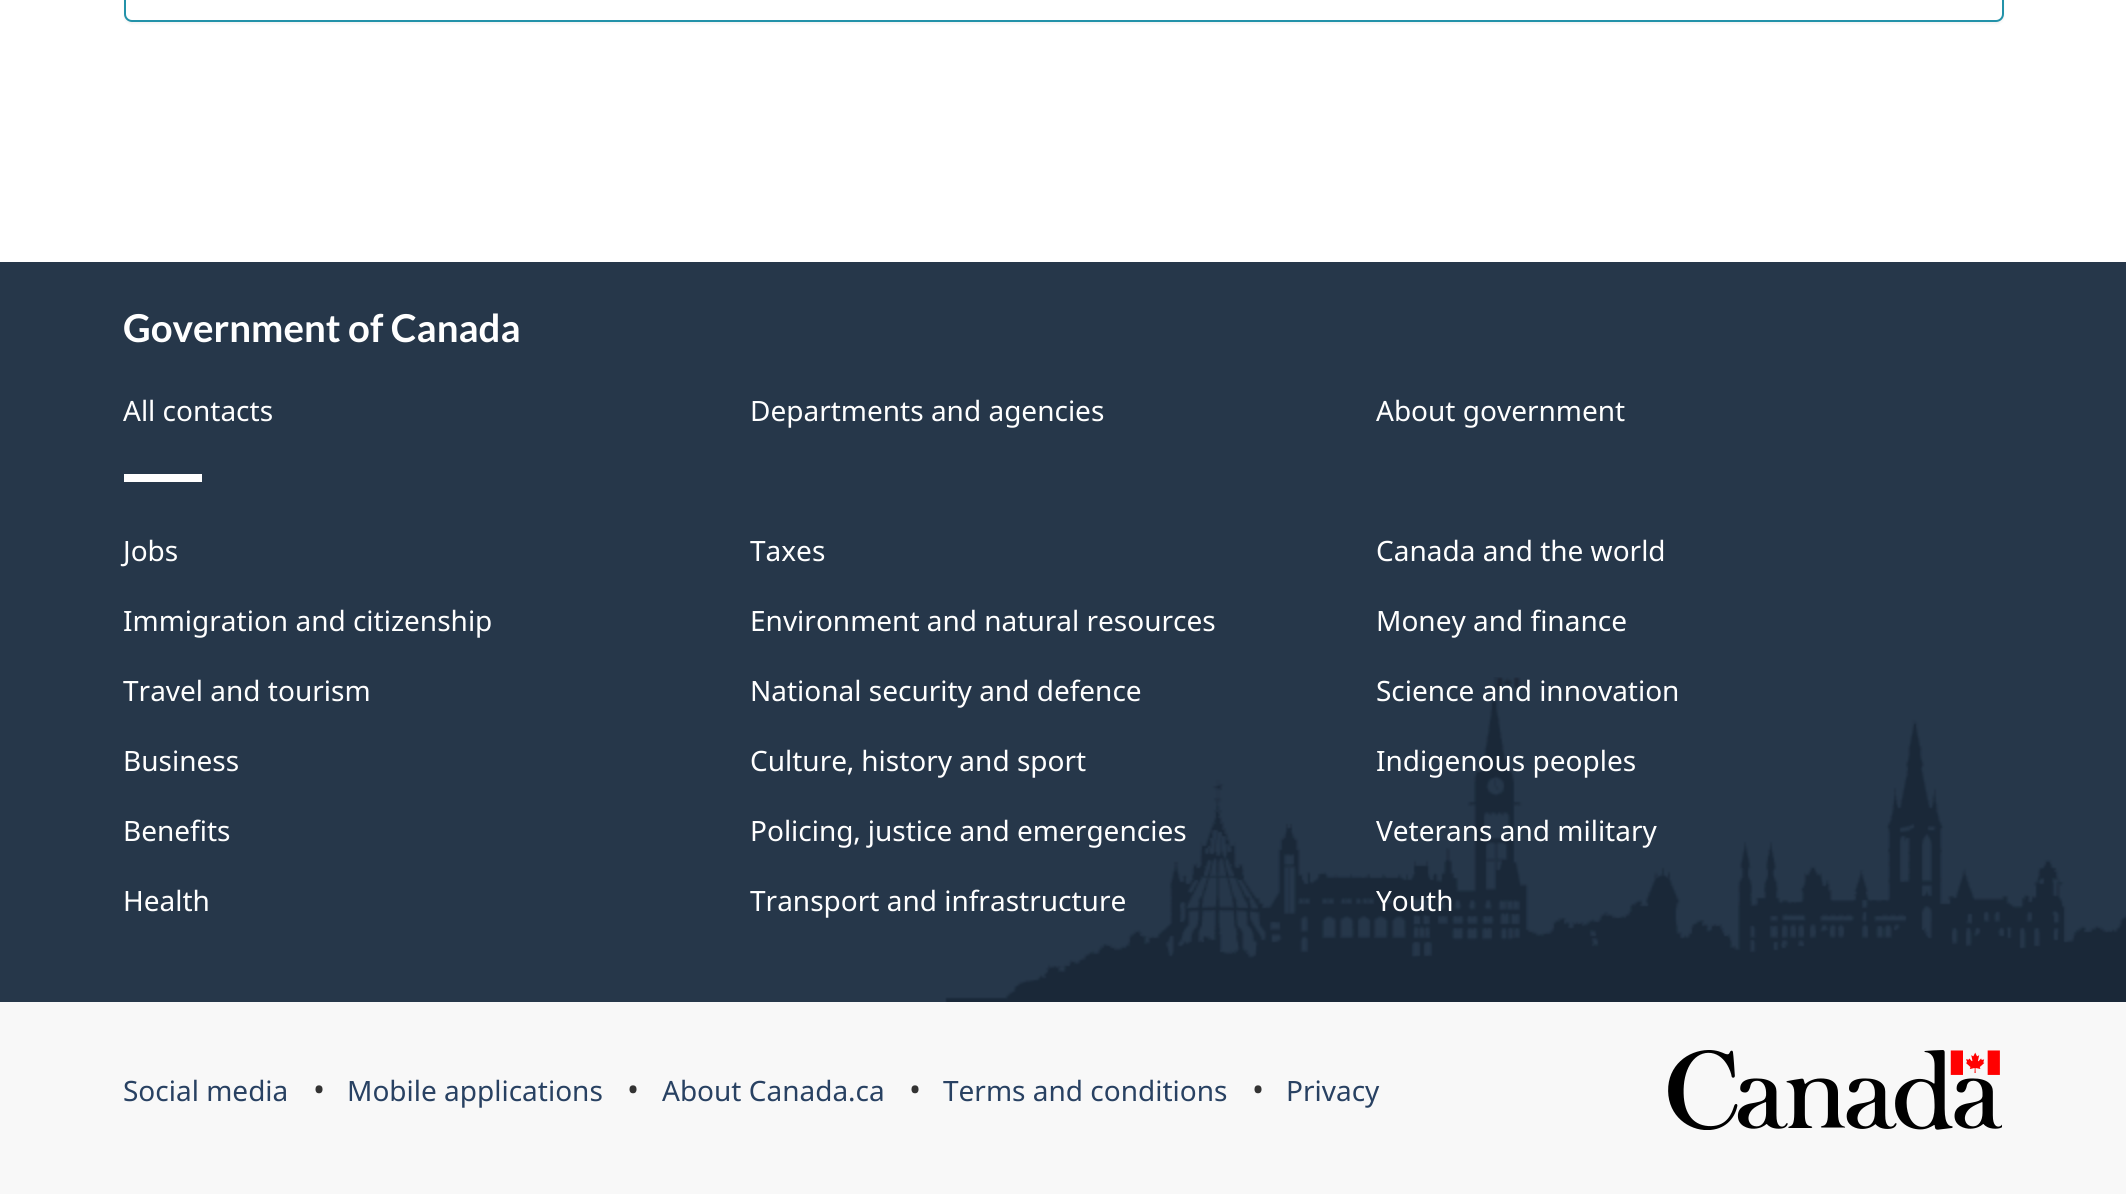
#include <cairo/cairo.h>
#include <math.h>
#include <stddef.h>

static cairo_t *cr;

static void use_color(int r, int g, int b) {
  cairo_set_source_rgb(cr, r / 255.0, g / 255.0, b / 255.0);
}

static void text(double x, double y, const char *s, const char *family, double size, int italic, int bold, int r, int g, int b) {
  cairo_select_font_face(cr, family, italic ? CAIRO_FONT_SLANT_ITALIC : CAIRO_FONT_SLANT_NORMAL,
    bold ? CAIRO_FONT_WEIGHT_BOLD : CAIRO_FONT_WEIGHT_NORMAL);
  cairo_set_font_size(cr, size);
  use_color(r, g, b);
  cairo_move_to(cr, x, y);
  cairo_show_text(cr, s);
}

static void box(double x, double y, double w, double h, int r, int g, int b) {
  use_color(r, g, b);
  cairo_rectangle(cr, x, y, w, h);
  cairo_fill(cr);
}

static void round_rect(double x, double y, double w, double h, double r) {
  cairo_new_sub_path(cr);
  cairo_arc(cr, x + w - r, y + h - r, r, 0, M_PI / 2);
  cairo_arc(cr, x + r, y + h - r, r, M_PI / 2, M_PI);
  cairo_arc(cr, x + r, y + r, r, M_PI, 1.5 * M_PI);
  cairo_arc(cr, x + w - r, y + r, r, 1.5 * M_PI, 2 * M_PI);
  cairo_close_path(cr);
}

static void shadow(double x, double y, double w, double h, double r, double blur, double alpha) {
  cairo_push_group_with_content(cr, CAIRO_CONTENT_ALPHA);
  cairo_set_operator(cr, CAIRO_OPERATOR_SOURCE);
  for (int i = 15; i >= -15 && fmin(w, h) + blur * i / 3 > 0; i -= 2) {
    double e = blur * i / 6;
    cairo_set_source_rgba(cr, 0, 0, 0, alpha * erfc((i - 1) / 8.5) / 2);
    round_rect(x - e, y - e, w + 2 * e, h + 2 * e, fmax(0, fmin(r + e + blur * .6, fmin(w, h) / 2 + e)));
    cairo_fill(cr);
  }
  cairo_pattern_t *soft = cairo_pop_group(cr);
  cairo_mask(cr, soft);
  cairo_pattern_destroy(soft);
}

static void picture(const char *path, double x, double y, double w, double h) {
  cairo_surface_t *image = cairo_image_surface_create_from_png(path);
  cairo_save(cr);
  cairo_set_source_surface(cr, image, x, y);
  cairo_rectangle(cr, x, y, w, h);
  cairo_fill(cr);
  cairo_restore(cr);
  cairo_surface_destroy(image);
}

static void draw(void) {
  use_color(255, 255, 255);
  cairo_paint(cr);
  use_color(0, 0, 0);
  shadow(124, -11, 1880, 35, 8, 1, 0.05);
  use_color(255, 255, 255);
  round_rect(125, -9, 1878, 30, 7);
  cairo_fill_preserve(cr);
  use_color(35, 146, 169);
  cairo_stroke(cr);
  box(0, 262, 2126, 740, 38, 55, 74);
  picture("img_01.png", 945, 677, 1181, 325);
  box(124, 474, 78, 8, 255, 255, 255);
  box(0, 1002, 2126, 192, 248, 248, 248);
  picture("img_02.png", 1668, 1050, 334, 80);
  text(123, 342, "Government of Canada", "Lato", 38.4, 0, 1, 255, 255, 255);
  text(123, 421, "All contacts", "Noto Sans", 28, 0, 0, 255, 255, 255);
  text(750, 421, "Departments and agencies", "Noto Sans", 28, 0, 0, 255, 255, 255);
  text(1376, 421, "About government", "Noto Sans", 28, 0, 0, 255, 255, 255);
  text(123, 561, "Jobs", "Noto Sans", 28, 0, 0, 255, 255, 255);
  text(750, 561, "Taxes", "Noto Sans", 28, 0, 0, 255, 255, 255);
  text(1376, 561, "Canada and the world", "Noto Sans", 28, 0, 0, 255, 255, 255);
  text(123, 631, "Immigration and citizenship", "Noto Sans", 28, 0, 0, 255, 255, 255);
  text(750, 631, "Environment and natural resources", "Noto Sans", 28, 0, 0, 255, 255, 255);
  text(1376, 631, "Money and finance", "Noto Sans", 28, 0, 0, 255, 255, 255);
  text(123, 701, "Travel and tourism", "Noto Sans", 28, 0, 0, 255, 255, 255);
  text(750, 701, "National security and defence", "Noto Sans", 28, 0, 0, 255, 255, 255);
  text(1376, 701, "Science and innovation", "Noto Sans", 28, 0, 0, 255, 255, 255);
  text(123, 771, "Business", "Noto Sans", 28, 0, 0, 255, 255, 255);
  text(750, 771, "Culture, history and sport", "Noto Sans", 28, 0, 0, 255, 255, 255);
  text(1376, 771, "Indigenous peoples", "Noto Sans", 28, 0, 0, 255, 255, 255);
  text(123, 841, "Benefits", "Noto Sans", 28, 0, 0, 255, 255, 255);
  text(750, 841, "Policing, justice and emergencies", "Noto Sans", 28, 0, 0, 255, 255, 255);
  text(1376, 841, "Veterans and military", "Noto Sans", 28, 0, 0, 255, 255, 255);
  text(123, 911, "Health", "Noto Sans", 28, 0, 0, 255, 255, 255);
  text(750, 911, "Transport and infrastructure", "Noto Sans", 28, 0, 0, 255, 255, 255);
  text(1376, 911, "Youth", "Noto Sans", 28, 0, 0, 255, 255, 255);
  text(123, 1101, "Social media", "Noto Sans", 28, 0, 0, 40, 65, 98);
  text(313, 1101, "•", "Noto Sans", 32, 0, 0, 51, 51, 51);
  text(347, 1101, "Mobile applications", "Noto Sans", 28, 0, 0, 40, 65, 98);
  text(627, 1101, "•", "Noto Sans", 32, 0, 0, 51, 51, 51);
  text(662, 1101, "About Canada.ca", "Noto Sans", 28, 0, 0, 40, 65, 98);
  text(909, 1101, "•", "Noto Sans", 32, 0, 0, 51, 51, 51);
  text(943, 1101, "Terms and conditions", "Noto Sans", 28, 0, 0, 40, 65, 98);
  text(1252, 1101, "•", "Noto Sans", 32, 0, 0, 51, 51, 51);
  text(1286, 1101, "Privacy", "Noto Sans", 28, 0, 0, 40, 65, 98);
}

int main(void) {
  cairo_surface_t *surface = cairo_image_surface_create(CAIRO_FORMAT_RGB24, 2126, 1194);
  cr = cairo_create(surface);
  cairo_font_options_t *options = cairo_font_options_create();
  cairo_font_options_set_hint_metrics(options, CAIRO_HINT_METRICS_OFF);
  cairo_font_options_set_hint_style(options, CAIRO_HINT_STYLE_NONE);
  cairo_set_font_options(cr, options);
  cairo_set_miter_limit(cr, 4);
  draw();
  cairo_surface_write_to_png(surface, "out.png");
  cairo_font_options_destroy(options);
  cairo_destroy(cr);
  cairo_surface_destroy(surface);
  return 0;
}
